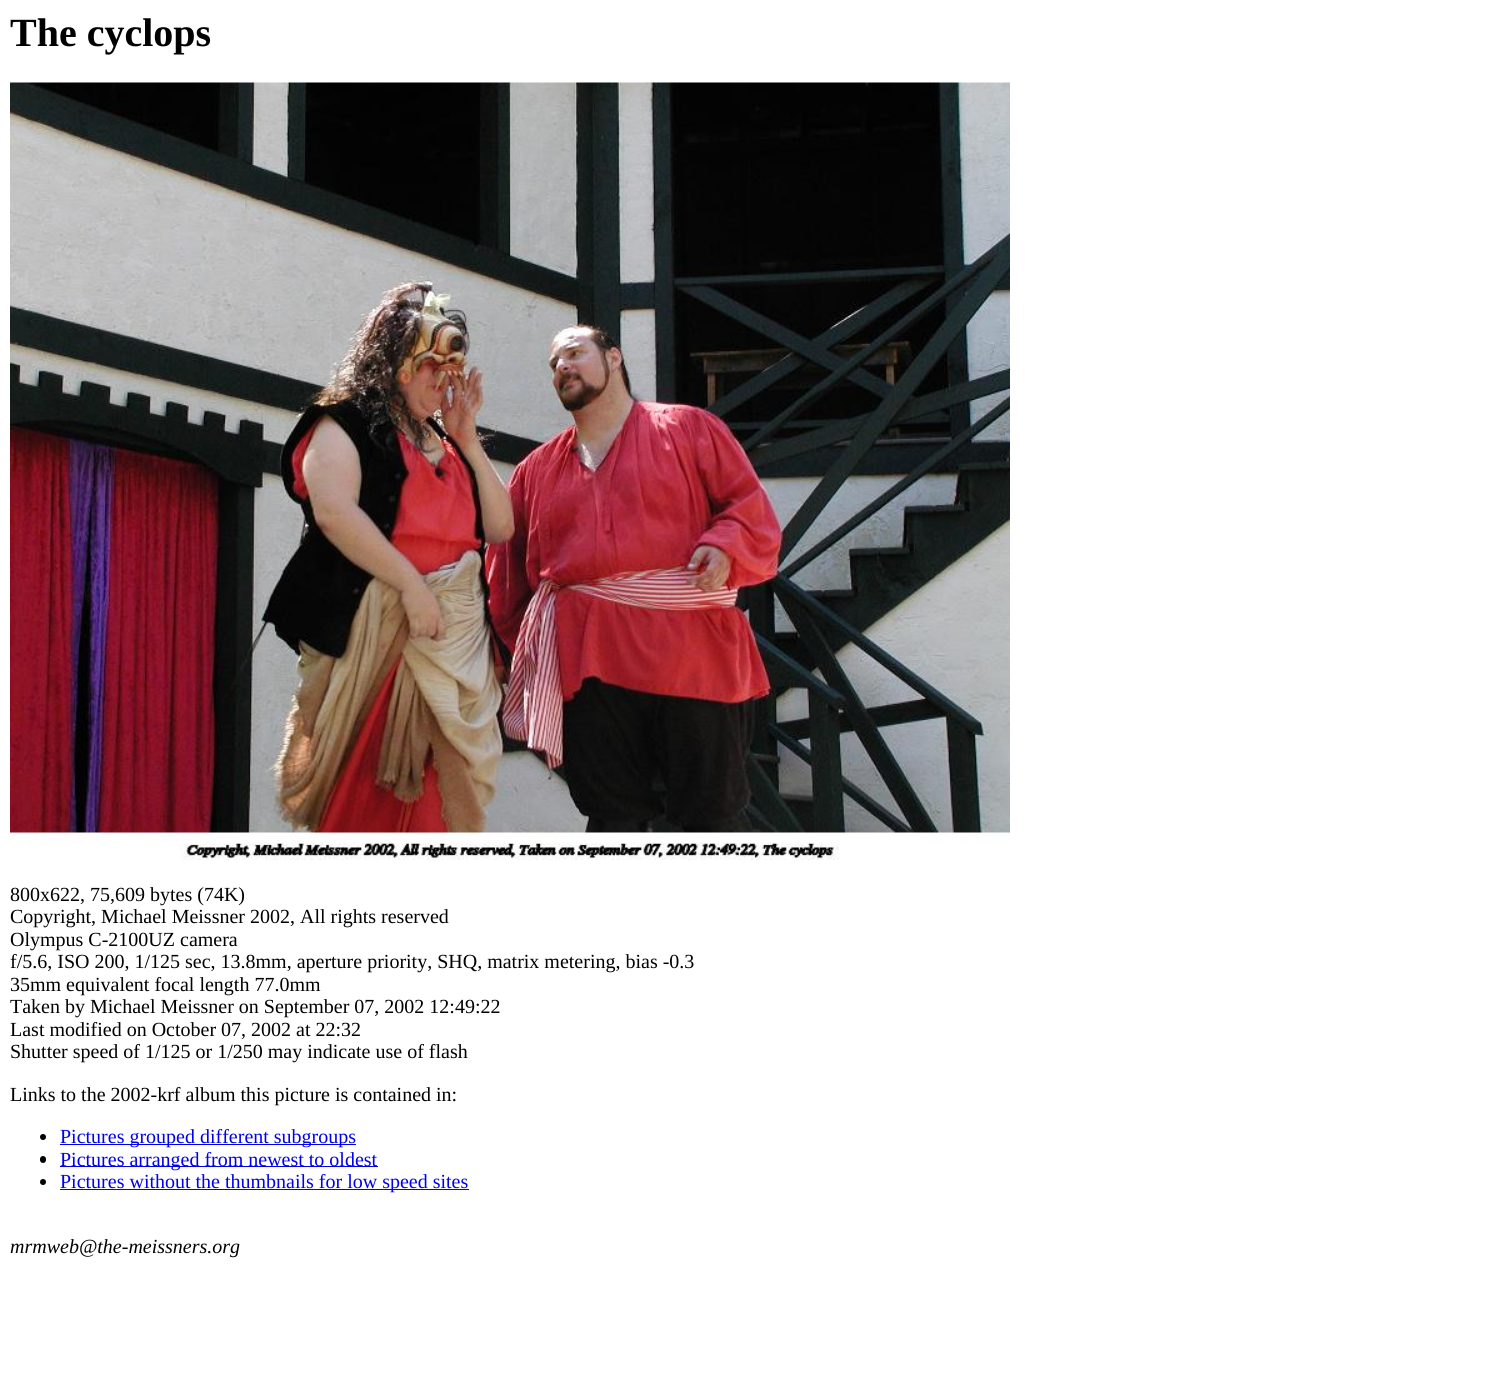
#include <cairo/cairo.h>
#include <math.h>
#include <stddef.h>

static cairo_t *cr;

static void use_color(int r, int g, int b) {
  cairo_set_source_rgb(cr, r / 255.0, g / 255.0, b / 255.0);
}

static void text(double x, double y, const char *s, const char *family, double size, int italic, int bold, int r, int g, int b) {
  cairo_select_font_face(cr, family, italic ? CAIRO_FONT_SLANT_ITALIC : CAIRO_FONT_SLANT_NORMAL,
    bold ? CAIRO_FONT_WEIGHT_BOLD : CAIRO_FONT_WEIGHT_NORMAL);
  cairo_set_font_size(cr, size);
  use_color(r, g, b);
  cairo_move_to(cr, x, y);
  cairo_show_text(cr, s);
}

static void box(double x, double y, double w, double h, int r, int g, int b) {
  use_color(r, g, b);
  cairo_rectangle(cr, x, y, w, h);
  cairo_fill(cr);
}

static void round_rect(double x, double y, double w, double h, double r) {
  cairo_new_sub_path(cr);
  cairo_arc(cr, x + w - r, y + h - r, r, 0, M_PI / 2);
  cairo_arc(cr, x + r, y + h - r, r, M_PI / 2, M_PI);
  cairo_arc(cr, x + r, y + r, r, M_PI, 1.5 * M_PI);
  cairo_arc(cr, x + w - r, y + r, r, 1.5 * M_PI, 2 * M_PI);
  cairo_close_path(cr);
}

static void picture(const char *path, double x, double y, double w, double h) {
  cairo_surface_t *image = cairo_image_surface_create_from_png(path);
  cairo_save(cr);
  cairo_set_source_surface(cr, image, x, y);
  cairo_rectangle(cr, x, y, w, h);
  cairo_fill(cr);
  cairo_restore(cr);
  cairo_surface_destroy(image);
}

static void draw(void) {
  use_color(255, 255, 255);
  cairo_paint(cr);
  picture("img_01.png", 10, 82, 1000, 778);
  use_color(0, 0, 0);
  cairo_arc(cr, 43, 1137, 3, 0, 2 * M_PI);
  cairo_fill(cr);
  box(60, 1144, 296, 1, 0, 0, 238);
  use_color(0, 0, 0);
  round_rect(40, 1156, 6, 7, 3);
  cairo_fill(cr);
  box(60, 1166, 318, 1, 0, 0, 238);
  use_color(0, 0, 0);
  cairo_arc(cr, 43, 1182, 3, 0, 2 * M_PI);
  cairo_fill(cr);
  box(60, 1189, 409, 1, 0, 0, 238);
  text(10, 46, "The cyclops", "Liberation Serif", 40, 0, 1, 0, 0, 0);
  text(10, 901, "800x622, 75,609 bytes (74K)", "Liberation Serif", 20, 0, 0, 0, 0, 0);
  text(10, 923, "Copyright, Michael Meissner 2002, All rights reserved", "Liberation Serif", 20, 0, 0, 0, 0, 0);
  text(10, 946, "Olympus C-2100UZ camera", "Liberation Serif", 20, 0, 0, 0, 0, 0);
  text(10, 968, "f/5.6, ISO 200, 1/125 sec, 13.8mm, aperture priority, SHQ, matrix metering, bias -0.3", "Liberation Serif", 20, 0, 0, 0, 0, 0);
  text(10, 991, "35mm equivalent focal length 77.0mm", "Liberation Serif", 20, 0, 0, 0, 0, 0);
  text(10, 1013, "Taken by Michael Meissner on September 07, 2002 12:49:22", "Liberation Serif", 20, 0, 0, 0, 0, 0);
  text(10, 1036, "Last modified on October 07, 2002 at 22:32", "Liberation Serif", 20, 0, 0, 0, 0, 0);
  text(10, 1058, "Shutter speed of 1/125 or 1/250 may indicate use of flash", "Liberation Serif", 20, 0, 0, 0, 0, 0);
  text(10, 1101, "Links to the 2002-krf album this picture is contained in:", "Liberation Serif", 20, 0, 0, 0, 0, 0);
  text(60, 1143, "Pictures grouped different subgroups", "Liberation Serif", 20, 0, 0, 0, 0, 238);
  text(60, 1166, "Pictures arranged from newest to oldest", "Liberation Serif", 20, 0, 0, 0, 0, 238);
  text(60, 1188, "Pictures without the thumbnails for low speed sites", "Liberation Serif", 20, 0, 0, 0, 0, 238);
  text(10, 1253, "mrmweb@the-meissners.org", "Liberation Serif", 20, 1, 0, 0, 0, 0);
}

int main(void) {
  cairo_surface_t *surface = cairo_image_surface_create(CAIRO_FORMAT_RGB24, 1510, 1380);
  cr = cairo_create(surface);
  cairo_font_options_t *options = cairo_font_options_create();
  cairo_font_options_set_hint_metrics(options, CAIRO_HINT_METRICS_OFF);
  cairo_font_options_set_hint_style(options, CAIRO_HINT_STYLE_NONE);
  cairo_set_font_options(cr, options);
  cairo_set_miter_limit(cr, 4);
  draw();
  cairo_surface_write_to_png(surface, "out.png");
  cairo_font_options_destroy(options);
  cairo_destroy(cr);
  cairo_surface_destroy(surface);
  return 0;
}
